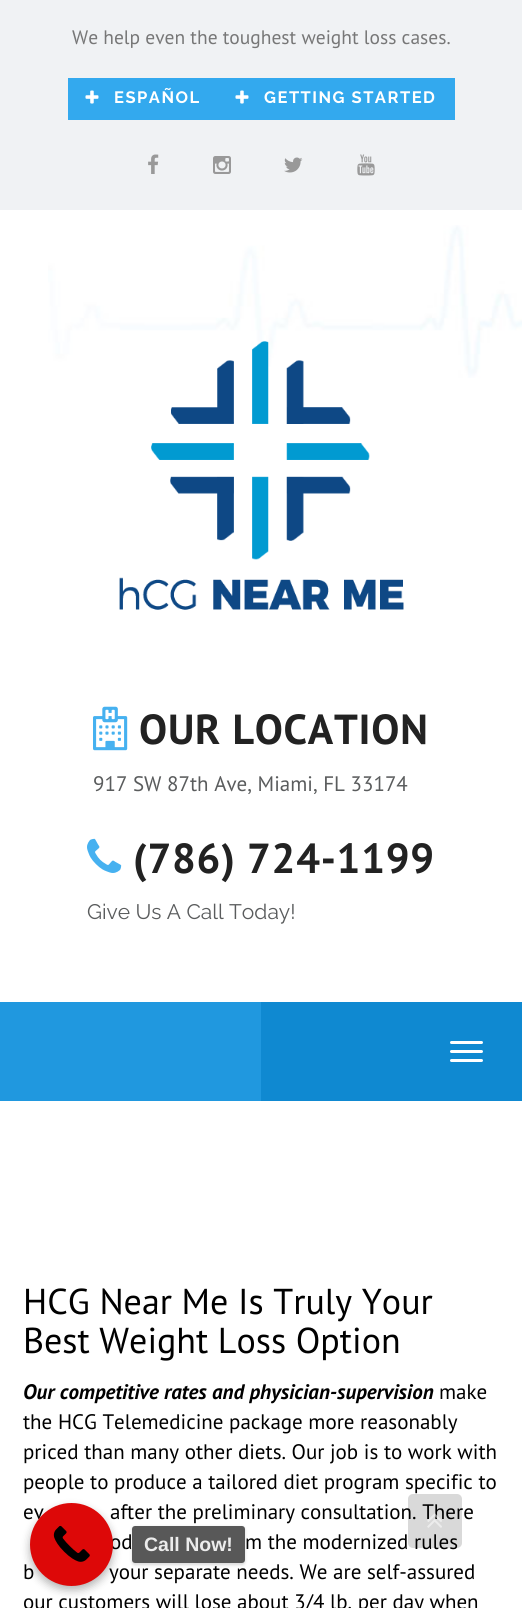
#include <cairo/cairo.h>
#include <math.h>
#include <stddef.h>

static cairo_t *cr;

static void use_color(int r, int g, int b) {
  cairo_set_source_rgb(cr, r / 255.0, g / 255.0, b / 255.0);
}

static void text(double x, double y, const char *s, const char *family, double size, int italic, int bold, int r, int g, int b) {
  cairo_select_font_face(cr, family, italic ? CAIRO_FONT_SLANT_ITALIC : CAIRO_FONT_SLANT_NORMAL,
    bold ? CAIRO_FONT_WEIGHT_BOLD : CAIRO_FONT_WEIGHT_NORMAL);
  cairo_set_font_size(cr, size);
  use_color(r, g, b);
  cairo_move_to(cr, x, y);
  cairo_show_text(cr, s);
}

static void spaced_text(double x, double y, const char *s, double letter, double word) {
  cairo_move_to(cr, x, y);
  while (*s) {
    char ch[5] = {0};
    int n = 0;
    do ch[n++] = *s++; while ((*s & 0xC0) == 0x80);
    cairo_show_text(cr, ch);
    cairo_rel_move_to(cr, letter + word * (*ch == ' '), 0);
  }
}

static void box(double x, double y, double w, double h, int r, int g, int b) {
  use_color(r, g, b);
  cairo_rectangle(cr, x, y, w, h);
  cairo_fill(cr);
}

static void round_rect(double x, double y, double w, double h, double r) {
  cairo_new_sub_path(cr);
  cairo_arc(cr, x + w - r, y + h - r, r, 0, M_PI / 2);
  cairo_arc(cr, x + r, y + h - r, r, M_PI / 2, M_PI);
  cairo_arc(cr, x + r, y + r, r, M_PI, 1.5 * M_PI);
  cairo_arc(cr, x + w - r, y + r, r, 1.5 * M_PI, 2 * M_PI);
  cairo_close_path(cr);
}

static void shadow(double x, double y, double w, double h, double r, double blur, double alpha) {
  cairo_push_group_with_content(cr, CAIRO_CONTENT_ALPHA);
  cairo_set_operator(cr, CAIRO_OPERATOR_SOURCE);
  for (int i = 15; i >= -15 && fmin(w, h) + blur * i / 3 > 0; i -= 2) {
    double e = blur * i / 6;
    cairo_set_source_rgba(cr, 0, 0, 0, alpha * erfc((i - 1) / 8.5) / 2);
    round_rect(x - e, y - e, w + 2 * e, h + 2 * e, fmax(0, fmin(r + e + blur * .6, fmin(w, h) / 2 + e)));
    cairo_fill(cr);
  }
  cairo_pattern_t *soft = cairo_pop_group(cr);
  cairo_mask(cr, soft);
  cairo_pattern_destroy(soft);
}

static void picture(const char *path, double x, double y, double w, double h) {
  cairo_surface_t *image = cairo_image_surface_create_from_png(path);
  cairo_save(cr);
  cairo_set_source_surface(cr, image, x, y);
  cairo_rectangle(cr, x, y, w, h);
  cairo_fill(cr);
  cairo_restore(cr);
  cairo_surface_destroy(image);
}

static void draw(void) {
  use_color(255, 255, 255);
  cairo_paint(cr);
  box(0, 0, 522, 210, 240, 242, 244);
  box(68, 78, 387, 42, 51, 169, 238);
  picture("img_01.png", 85, 90, 14, 14);
  picture("img_01.png", 235, 90, 14, 14);
  picture("img_02.png", 148, 154, 11, 20);
  picture("img_03.png", 213, 156, 18, 18);
  picture("img_04.png", 284, 157, 19, 16);
  picture("img_05.png", 357, 154, 18, 22);
  picture("img_06.png", 48, 225, 474, 153);
  picture("img_07.png", 119, 341, 285, 269);
  picture("img_08.png", 93, 706, 35, 45);
  picture("img_09.png", 87, 838, 35, 35);
  box(0, 1002, 261, 99, 32, 152, 223);
  box(261, 1002, 261, 99, 15, 137, 209);
  use_color(255, 255, 255);
  round_rect(450, 1041, 33, 3, 1.5);
  cairo_fill(cr);
  round_rect(450, 1050, 33, 3, 1.5);
  cairo_fill(cr);
  round_rect(450, 1059, 33, 3, 1.5);
  cairo_fill(cr);
  use_color(0, 0, 0);
  shadow(30, 1508, 83, 82, 41, 4.5, 0.3);
  cairo_save(cr);
  cairo_set_fill_rule(cr, CAIRO_FILL_RULE_EVEN_ODD);
  cairo_new_path(cr);
  cairo_move_to(cr, 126, 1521);
  cairo_line_to(cr, 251, 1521);
  cairo_line_to(cr, 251, 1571);
  cairo_line_to(cr, 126, 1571);
  cairo_close_path(cr);
  cairo_move_to(cr, 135, 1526);
  cairo_line_to(cr, 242, 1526);
  cairo_curve_to(cr, 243.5, 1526, 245, 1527.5, 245, 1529);
  cairo_line_to(cr, 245, 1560);
  cairo_curve_to(cr, 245, 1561.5, 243.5, 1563, 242, 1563);
  cairo_line_to(cr, 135, 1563);
  cairo_curve_to(cr, 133.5, 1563, 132, 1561.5, 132, 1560);
  cairo_line_to(cr, 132, 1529);
  cairo_curve_to(cr, 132, 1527.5, 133.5, 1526, 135, 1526);
  cairo_close_path(cr);
  cairo_clip(cr);
  shadow(132, 1527, 113, 38, 3, 1.5, 0.15);
  cairo_restore(cr);
  cairo_set_source_rgba(cr, 0.275, 0.275, 0.275, 0.9);
  round_rect(132, 1526, 113, 37, 3);
  cairo_fill(cr);
  text(72, 44, "We help even the toughest weight loss cases.", "PT Sans", 19.5, 0, 0, 119, 119, 119);
  cairo_select_font_face(cr, "Raleway", CAIRO_FONT_SLANT_NORMAL, CAIRO_FONT_WEIGHT_BOLD);
  cairo_set_font_size(cr, 16.5);
  use_color(255, 255, 255);
  spaced_text(114, 103, "ESPAÑOL", 1.5, 0);
  spaced_text(264, 103, "GETTING STARTED", 1.5, 0);
  cairo_select_font_face(cr, "PT Sans", CAIRO_FONT_SLANT_NORMAL, CAIRO_FONT_WEIGHT_BOLD);
  cairo_set_font_size(cr, 42);
  use_color(34, 34, 34);
  spaced_text(139, 744, "OUR LOCATION", 0.75, 0);
  text(93, 791, "917 SW 87th Ave, Miami, FL 33174", "PT Sans", 21, 0, 0, 90, 92, 93);
  cairo_select_font_face(cr, "PT Sans", CAIRO_FONT_SLANT_NORMAL, CAIRO_FONT_WEIGHT_BOLD);
  cairo_set_font_size(cr, 42);
  use_color(34, 34, 34);
  spaced_text(133, 873, "(786) 724-1199", 0.75, 0);
  text(87, 919, "Give Us A Call Today!", "Raleway", 21, 0, 0, 90, 92, 93);
  text(23, 1314, "HCG Near Me Is Truly Your", "PT Sans", 36, 0, 0, 0, 0, 0);
  text(23, 1353, "Best Weight Loss Option", "PT Sans", 36, 0, 0, 0, 0, 0);
  text(23, 1399, "Our competitive rates and physician-supervision", "PT Sans", 21, 1, 1, 0, 0, 0);
  text(439, 1399, "make", "PT Sans", 21, 0, 0, 0, 0, 0);
  text(23, 1429, "the HCG Telemedicine package more reasonably", "PT Sans", 21, 0, 0, 0, 0, 0);
  text(23, 1459, "priced than many other diets. Our job is to work with", "PT Sans", 21, 0, 0, 0, 0, 0);
  text(23, 1489, "people to produce a tailored diet program specific to", "PT Sans", 21, 0, 0, 0, 0, 0);
  text(23, 1519, "ev", "PT Sans", 21, 0, 0, 0, 0, 0);
  text(110, 1519, "after the preliminary consultation. There", "PT Sans", 21, 0, 0, 0, 0, 0);
  text(110, 1549, "od", "PT Sans", 21, 0, 0, 0, 0, 0);
  text(245, 1549, "m the modernized rules", "PT Sans", 21, 0, 0, 0, 0, 0);
  text(23, 1579, "b", "PT Sans", 21, 0, 0, 0, 0, 0);
  text(109, 1579, "your separate needs. We are self-assured", "PT Sans", 21, 0, 0, 0, 0, 0);
  text(23, 1609, "our customers will lose about 3/4 lb. per day when", "PT Sans", 21, 0, 0, 0, 0, 0);
  cairo_set_source_rgba(cr, 0, 0, 0, 0.15);
  round_rect(408, 1494, 54, 54, 5);
  cairo_fill(cr);
  picture("img_10.png", 427, 1513, 15, 15);
  use_color(221, 8, 8);
  cairo_arc(cr, 71.5, 1544.5, 41.5, 0, 2 * M_PI);
  cairo_fill(cr);
  picture("img_11.png", 53, 1525, 37, 37);
  text(144, 1551, "Call Now!", "Liberation Sans", 19.5, 0, 1, 236, 236, 236);
}

int main(void) {
  cairo_surface_t *surface = cairo_image_surface_create(CAIRO_FORMAT_RGB24, 522, 1608);
  cr = cairo_create(surface);
  cairo_font_options_t *options = cairo_font_options_create();
  cairo_font_options_set_hint_metrics(options, CAIRO_HINT_METRICS_OFF);
  cairo_font_options_set_hint_style(options, CAIRO_HINT_STYLE_NONE);
  cairo_set_font_options(cr, options);
  cairo_set_miter_limit(cr, 4);
  draw();
  cairo_surface_write_to_png(surface, "out.png");
  cairo_font_options_destroy(options);
  cairo_destroy(cr);
  cairo_surface_destroy(surface);
  return 0;
}
